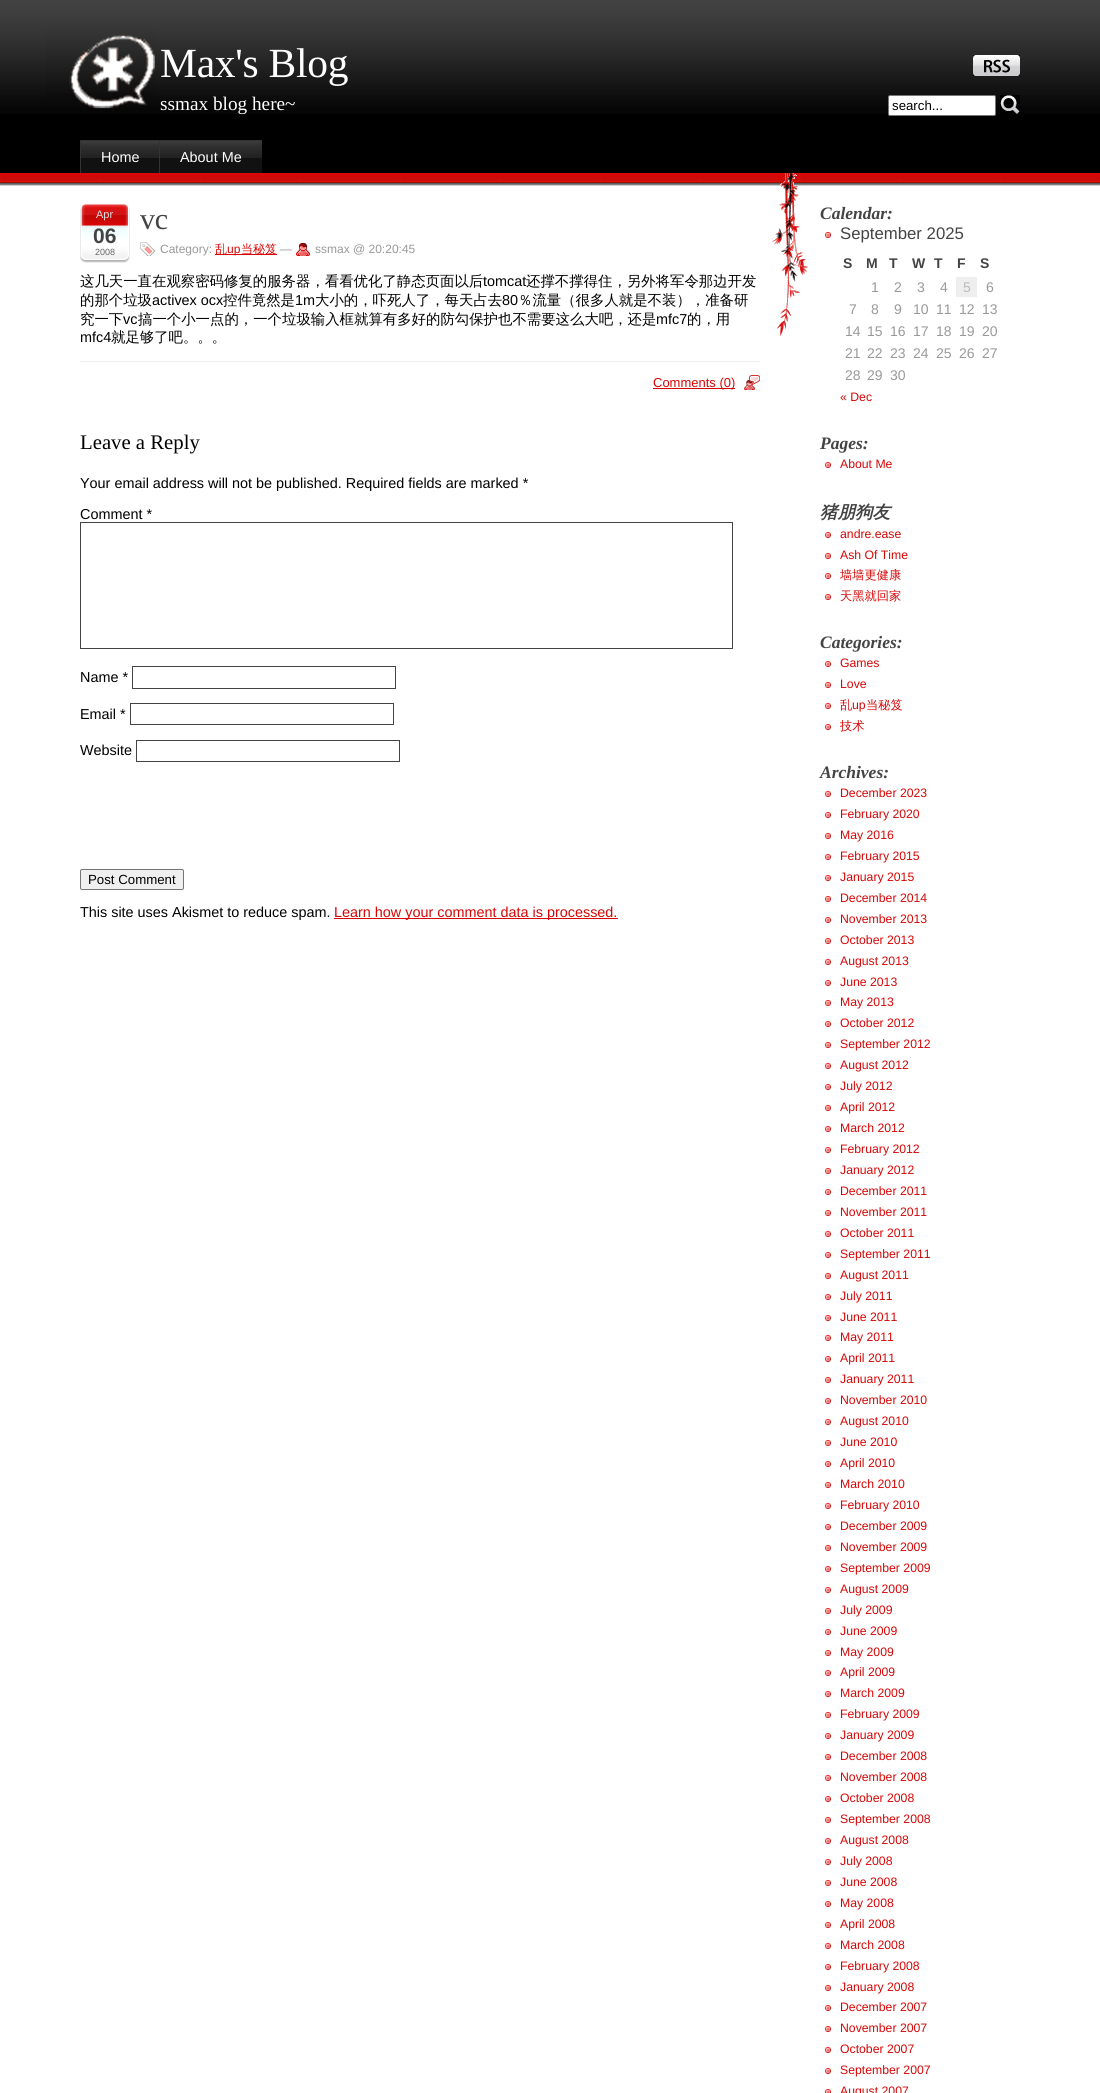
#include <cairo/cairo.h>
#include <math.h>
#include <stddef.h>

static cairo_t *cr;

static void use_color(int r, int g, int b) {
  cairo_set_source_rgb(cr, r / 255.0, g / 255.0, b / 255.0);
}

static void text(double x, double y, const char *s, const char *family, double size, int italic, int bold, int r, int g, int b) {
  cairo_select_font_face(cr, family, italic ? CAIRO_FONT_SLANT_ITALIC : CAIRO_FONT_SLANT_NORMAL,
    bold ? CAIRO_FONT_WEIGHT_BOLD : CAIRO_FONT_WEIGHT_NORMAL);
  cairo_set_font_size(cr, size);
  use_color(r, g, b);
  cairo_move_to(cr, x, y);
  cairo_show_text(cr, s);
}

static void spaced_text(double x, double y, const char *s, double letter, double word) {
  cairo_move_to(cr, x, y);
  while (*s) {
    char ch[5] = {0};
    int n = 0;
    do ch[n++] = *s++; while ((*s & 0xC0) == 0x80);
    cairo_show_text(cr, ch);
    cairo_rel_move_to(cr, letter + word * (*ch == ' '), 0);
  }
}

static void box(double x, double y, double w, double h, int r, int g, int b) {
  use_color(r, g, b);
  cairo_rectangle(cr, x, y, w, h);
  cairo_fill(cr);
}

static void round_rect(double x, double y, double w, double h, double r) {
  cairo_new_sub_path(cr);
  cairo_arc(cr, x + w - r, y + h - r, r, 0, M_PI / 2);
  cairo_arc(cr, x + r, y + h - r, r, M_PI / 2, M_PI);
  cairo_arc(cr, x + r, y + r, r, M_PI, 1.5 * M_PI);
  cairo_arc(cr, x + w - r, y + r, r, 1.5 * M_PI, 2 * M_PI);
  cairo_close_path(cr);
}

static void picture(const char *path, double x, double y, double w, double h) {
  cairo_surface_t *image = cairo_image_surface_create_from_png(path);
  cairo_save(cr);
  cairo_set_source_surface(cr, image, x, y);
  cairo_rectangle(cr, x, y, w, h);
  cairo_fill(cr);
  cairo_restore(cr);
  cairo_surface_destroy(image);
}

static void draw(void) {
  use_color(255, 255, 255);
  cairo_paint(cr);
  picture("img_01.png", 0, 173, 1100, 13);
  box(0, 114, 1100, 59, 0, 0, 0);
  picture("img_02.png", 0, 0, 1100, 114);
  picture("img_03.png", 973, 55, 47, 21);
  use_color(255, 255, 255);
  round_rect(888.5, 95.5, 107, 20, 1.5);
  cairo_fill_preserve(cr);
  use_color(118, 118, 118);
  cairo_set_line_width(cr, 1);
  cairo_stroke(cr);
  picture("img_04.png", 1000, 95, 20, 19);
  picture("img_05.png", 81, 141, 78, 32);
  box(80, 140, 182, 1, 51, 51, 51);
  box(80, 140, 1, 33, 51, 51, 51);
  picture("img_06.png", 160, 141, 102, 32);
  box(159, 140, 1, 33, 51, 51, 51);
  picture("img_07.png", 80, 203, 50, 60);
  picture("img_08.png", 140, 242, 16, 14);
  box(215, 254, 62, 1, 215, 6, 6);
  picture("img_09.png", 296, 243, 14, 13);
  box(80, 361, 680, 1, 238, 238, 238);
  picture("img_10.png", 744, 375, 16, 15);
  box(653, 388, 82, 1, 215, 6, 6);
  cairo_rectangle(cr, 80.5, 522.5, 652, 126);
  use_color(68, 68, 68);
  cairo_stroke(cr);
  cairo_rectangle(cr, 132.5, 666.5, 263, 22);
  cairo_stroke(cr);
  cairo_rectangle(cr, 130.5, 703.5, 263, 21);
  cairo_stroke(cr);
  cairo_rectangle(cr, 136.5, 740.5, 263, 21);
  cairo_stroke(cr);
  use_color(239, 239, 239);
  round_rect(80.5, 869.5, 103, 20, 1.5);
  cairo_fill_preserve(cr);
  use_color(118, 118, 118);
  cairo_stroke(cr);
  box(334, 918, 284, 1, 215, 6, 6);
  picture("img_11.png", 772, 173, 36, 163);
  picture("img_12.png", 825, 232, 6, 6);
  box(956, 277, 21, 20, 238, 238, 238);
  picture("img_12.png", 825, 462, 6, 6);
  picture("img_12.png", 825, 532, 6, 6);
  picture("img_12.png", 825, 553, 6, 6);
  picture("img_12.png", 825, 573, 6, 6);
  picture("img_12.png", 825, 594, 6, 6);
  picture("img_12.png", 825, 661, 6, 6);
  picture("img_12.png", 825, 682, 6, 6);
  picture("img_12.png", 825, 703, 6, 6);
  picture("img_12.png", 825, 724, 6, 6);
  picture("img_12.png", 825, 791, 6, 6);
  picture("img_12.png", 825, 812, 6, 6);
  picture("img_12.png", 825, 833, 6, 6);
  picture("img_12.png", 825, 854, 6, 6);
  picture("img_12.png", 825, 875, 6, 6);
  picture("img_12.png", 825, 896, 6, 6);
  picture("img_12.png", 825, 917, 6, 6);
  picture("img_12.png", 825, 938, 6, 6);
  picture("img_12.png", 825, 959, 6, 6);
  picture("img_12.png", 825, 980, 6, 6);
  picture("img_12.png", 825, 1000, 6, 6);
  picture("img_12.png", 825, 1021, 6, 6);
  picture("img_12.png", 825, 1042, 6, 6);
  picture("img_12.png", 825, 1063, 6, 6);
  picture("img_12.png", 825, 1084, 6, 6);
  picture("img_12.png", 825, 1105, 6, 6);
  picture("img_12.png", 825, 1126, 6, 6);
  picture("img_12.png", 825, 1147, 6, 6);
  picture("img_12.png", 825, 1168, 6, 6);
  picture("img_12.png", 825, 1189, 6, 6);
  picture("img_12.png", 825, 1210, 6, 6);
  picture("img_12.png", 825, 1231, 6, 6);
  picture("img_12.png", 825, 1252, 6, 6);
  picture("img_12.png", 825, 1273, 6, 6);
  picture("img_12.png", 825, 1294, 6, 6);
  picture("img_12.png", 825, 1315, 6, 6);
  picture("img_12.png", 825, 1335, 6, 6);
  picture("img_12.png", 825, 1356, 6, 6);
  picture("img_12.png", 825, 1377, 6, 6);
  picture("img_12.png", 825, 1398, 6, 6);
  picture("img_12.png", 825, 1419, 6, 6);
  picture("img_12.png", 825, 1440, 6, 6);
  picture("img_12.png", 825, 1461, 6, 6);
  picture("img_12.png", 825, 1482, 6, 6);
  picture("img_12.png", 825, 1503, 6, 6);
  picture("img_12.png", 825, 1524, 6, 6);
  picture("img_12.png", 825, 1545, 6, 6);
  picture("img_12.png", 825, 1566, 6, 6);
  picture("img_12.png", 825, 1587, 6, 6);
  picture("img_12.png", 825, 1608, 6, 6);
  picture("img_12.png", 825, 1629, 6, 6);
  picture("img_12.png", 825, 1650, 6, 6);
  picture("img_12.png", 825, 1670, 6, 6);
  picture("img_12.png", 825, 1691, 6, 6);
  picture("img_12.png", 825, 1712, 6, 6);
  picture("img_12.png", 825, 1733, 6, 6);
  picture("img_12.png", 825, 1754, 6, 6);
  picture("img_12.png", 825, 1775, 6, 6);
  picture("img_12.png", 825, 1796, 6, 6);
  picture("img_12.png", 825, 1817, 6, 6);
  picture("img_12.png", 825, 1838, 6, 6);
  picture("img_12.png", 825, 1859, 6, 6);
  picture("img_12.png", 825, 1880, 6, 6);
  picture("img_12.png", 825, 1901, 6, 6);
  picture("img_12.png", 825, 1922, 6, 6);
  picture("img_12.png", 825, 1943, 6, 6);
  picture("img_12.png", 825, 1964, 6, 6);
  picture("img_12.png", 825, 1985, 6, 6);
  picture("img_12.png", 825, 2005, 6, 6);
  picture("img_12.png", 825, 2026, 6, 6);
  picture("img_12.png", 825, 2047, 6, 6);
  picture("img_12.png", 825, 2068, 6, 6);
  picture("img_13.png", 825, 2089, 6, 4);
  cairo_select_font_face(cr, "Liberation Serif", CAIRO_FONT_SLANT_NORMAL, CAIRO_FONT_WEIGHT_NORMAL);
  cairo_set_font_size(cr, 41.5);
  use_color(255, 255, 255);
  spaced_text(160, 77, "Max's Blog", -0.25, 0);
  text(160, 110, "ssmax blog here~", "Liberation Serif", 19.25, 0, 0, 255, 255, 255);
  text(892, 110, "search...", "Liberation Sans", 13.25, 0, 0, 0, 0, 0);
  text(101, 162, "Home", "Liberation Sans", 14.4, 0, 0, 255, 255, 255);
  text(180, 162, "About Me", "Liberation Sans", 14.4, 0, 0, 255, 255, 255);
  text(96, 218, "Apr", "Liberation Sans", 11, 0, 0, 221, 221, 221);
  text(93, 243, "06", "Liberation Sans", 21, 0, 1, 68, 68, 68);
  text(95, 255, "2008", "Liberation Sans", 9, 0, 0, 102, 102, 102);
  cairo_select_font_face(cr, "Liberation Serif", CAIRO_FONT_SLANT_NORMAL, CAIRO_FONT_WEIGHT_NORMAL);
  cairo_set_font_size(cr, 30);
  use_color(68, 68, 68);
  spaced_text(140, 229, "vc", -0.25, 0);
  text(160, 253, "Category:", "Liberation Sans", 12, 0, 0, 153, 153, 153);
  text(215, 253, "乱", "WenQuanYi Zen Hei Medium", 12, 0, 0, 215, 6, 6);
  text(227, 253, "up", "Liberation Sans", 12, 0, 0, 215, 6, 6);
  text(241, 253, "当秘笈", "WenQuanYi Zen Hei Medium", 12, 0, 0, 215, 6, 6);
  text(280, 253, "—", "Liberation Sans", 12, 0, 0, 153, 153, 153);
  text(315, 253, "ssmax @ 20:20:45", "Liberation Sans", 12, 0, 0, 153, 153, 153);
  text(80, 286, "这几天一直在观察密码修复的服务器，看看优化了静态页面以后", "WenQuanYi Zen Hei Medium", 14.4, 0, 0, 0, 0, 0);
  text(483, 286, "tomcat", "Liberation Sans", 14.4, 0, 0, 0, 0, 0);
  text(526, 286, "还撑不撑得住，另外将军令那边开发", "WenQuanYi Zen Hei Medium", 14.4, 0, 0, 0, 0, 0);
  text(80, 305, "的那个垃圾", "WenQuanYi Zen Hei Medium", 14.4, 0, 0, 0, 0, 0);
  text(152, 305, "activex ocx", "Liberation Sans", 14.4, 0, 0, 0, 0, 0);
  text(223, 305, "控件竟然是", "WenQuanYi Zen Hei Medium", 14.4, 0, 0, 0, 0, 0);
  text(295, 305, "1m", "Liberation Sans", 14.4, 0, 0, 0, 0, 0);
  text(315, 305, "大小的，吓死人了，每天占去", "WenQuanYi Zen Hei Medium", 14.4, 0, 0, 0, 0, 0);
  text(502, 305, "80", "Liberation Sans", 14.4, 0, 0, 0, 0, 0);
  text(518, 305, "％流量（很多人就是不装），准备研", "WenQuanYi Zen Hei Medium", 14.4, 0, 0, 0, 0, 0);
  text(80, 324, "究一下", "WenQuanYi Zen Hei Medium", 14.4, 0, 0, 0, 0, 0);
  text(123, 324, "vc", "Liberation Sans", 14.4, 0, 0, 0, 0, 0);
  text(138, 324, "搞一个小一点的，一个垃圾输入框就算有多好的防勾保护也不需要这么大吧，还是", "WenQuanYi Zen Hei Medium", 14.4, 0, 0, 0, 0, 0);
  text(656, 324, "mfc7", "Liberation Sans", 14.4, 0, 0, 0, 0, 0);
  text(687, 324, "的，用", "WenQuanYi Zen Hei Medium", 14.4, 0, 0, 0, 0, 0);
  text(80, 342, "mfc4", "Liberation Sans", 14.4, 0, 0, 0, 0, 0);
  text(111, 342, "就足够了吧。。。", "WenQuanYi Zen Hei Medium", 14.4, 0, 0, 0, 0, 0);
  text(653, 387, "Comments (0)", "Liberation Sans", 13, 0, 0, 215, 6, 6);
  text(80, 449, "Leave a Reply", "Liberation Serif", 20.75, 0, 0, 0, 0, 0);
  text(80, 488, "Your email address will not be published. Required fields are marked *", "Liberation Sans", 14.4, 0, 0, 0, 0, 0);
  text(80, 519, "Comment *", "Liberation Sans", 14.4, 0, 0, 0, 0, 0);
  text(80, 682, "Name *", "Liberation Sans", 14.4, 0, 0, 0, 0, 0);
  text(80, 719, "Email *", "Liberation Sans", 14.4, 0, 0, 0, 0, 0);
  text(80, 755, "Website", "Liberation Sans", 14.4, 0, 0, 0, 0, 0);
  text(88, 884, "Post Comment", "Liberation Sans", 13.25, 0, 0, 0, 0, 0);
  text(80, 917, "This site uses Akismet to reduce spam.", "Liberation Sans", 14.4, 0, 0, 0, 0, 0);
  text(334, 917, "Learn how your comment data is processed.", "Liberation Sans", 14.4, 0, 0, 215, 6, 6);
  text(820, 219, "Calendar:", "Liberation Serif", 17.5, 1, 1, 68, 68, 68);
  text(840, 239, "September 2025", "Liberation Sans", 16.75, 0, 0, 68, 68, 68);
  text(843, 268, "S", "Liberation Sans", 14, 0, 1, 68, 68, 68);
  text(866, 268, "M", "Liberation Sans", 14, 0, 1, 68, 68, 68);
  text(889, 268, "T", "Liberation Sans", 14, 0, 1, 68, 68, 68);
  text(912, 268, "W", "Liberation Sans", 14, 0, 1, 68, 68, 68);
  text(934, 268, "T", "Liberation Sans", 14, 0, 1, 68, 68, 68);
  text(957, 268, "F", "Liberation Sans", 14, 0, 1, 68, 68, 68);
  text(980, 268, "S", "Liberation Sans", 14, 0, 1, 68, 68, 68);
  text(871, 292, "1", "Liberation Sans", 14, 0, 0, 153, 153, 153);
  text(894, 292, "2", "Liberation Sans", 14, 0, 0, 153, 153, 153);
  text(917, 292, "3", "Liberation Sans", 14, 0, 0, 153, 153, 153);
  text(940, 292, "4", "Liberation Sans", 14, 0, 0, 153, 153, 153);
  text(963, 292, "5", "Liberation Sans", 14, 0, 0, 187, 187, 187);
  text(986, 292, "6", "Liberation Sans", 14, 0, 0, 153, 153, 153);
  text(849, 314, "7", "Liberation Sans", 14, 0, 0, 153, 153, 153);
  text(871, 314, "8", "Liberation Sans", 14, 0, 0, 153, 153, 153);
  text(894, 314, "9", "Liberation Sans", 14, 0, 0, 153, 153, 153);
  text(913, 314, "10", "Liberation Sans", 14, 0, 0, 153, 153, 153);
  text(936, 314, "11", "Liberation Sans", 14, 0, 0, 153, 153, 153);
  text(959, 314, "12", "Liberation Sans", 14, 0, 0, 153, 153, 153);
  text(982, 314, "13", "Liberation Sans", 14, 0, 0, 153, 153, 153);
  text(845, 336, "14", "Liberation Sans", 14, 0, 0, 153, 153, 153);
  text(867, 336, "15", "Liberation Sans", 14, 0, 0, 153, 153, 153);
  text(890, 336, "16", "Liberation Sans", 14, 0, 0, 153, 153, 153);
  text(913, 336, "17", "Liberation Sans", 14, 0, 0, 153, 153, 153);
  text(936, 336, "18", "Liberation Sans", 14, 0, 0, 153, 153, 153);
  text(959, 336, "19", "Liberation Sans", 14, 0, 0, 153, 153, 153);
  text(982, 336, "20", "Liberation Sans", 14, 0, 0, 153, 153, 153);
  text(845, 358, "21", "Liberation Sans", 14, 0, 0, 153, 153, 153);
  text(867, 358, "22", "Liberation Sans", 14, 0, 0, 153, 153, 153);
  text(890, 358, "23", "Liberation Sans", 14, 0, 0, 153, 153, 153);
  text(913, 358, "24", "Liberation Sans", 14, 0, 0, 153, 153, 153);
  text(936, 358, "25", "Liberation Sans", 14, 0, 0, 153, 153, 153);
  text(959, 358, "26", "Liberation Sans", 14, 0, 0, 153, 153, 153);
  text(982, 358, "27", "Liberation Sans", 14, 0, 0, 153, 153, 153);
  text(845, 380, "28", "Liberation Sans", 14, 0, 0, 153, 153, 153);
  text(867, 380, "29", "Liberation Sans", 14, 0, 0, 153, 153, 153);
  text(890, 380, "30", "Liberation Sans", 14, 0, 0, 153, 153, 153);
  text(840, 401, "« Dec", "Liberation Sans", 12.25, 0, 0, 215, 6, 6);
  text(820, 449, "Pages:", "Liberation Serif", 17.5, 1, 1, 68, 68, 68);
  text(840, 468, "About Me", "Liberation Sans", 12.25, 0, 0, 215, 6, 6);
  text(820, 518, "猪朋狗友", "WenQuanYi Zen Hei", 17.5, 1, 1, 68, 68, 68);
  text(840, 538, "andre.ease", "Liberation Sans", 12.25, 0, 0, 215, 6, 6);
  text(840, 559, "Ash Of Time", "Liberation Sans", 12.25, 0, 0, 215, 6, 6);
  text(840, 579, "墙墙更健康", "WenQuanYi Zen Hei Medium", 12.25, 0, 0, 215, 6, 6);
  text(840, 600, "天黑就回家", "WenQuanYi Zen Hei Medium", 12.25, 0, 0, 215, 6, 6);
  text(820, 648, "Categories:", "Liberation Serif", 17.5, 1, 1, 68, 68, 68);
  text(840, 667, "Games", "Liberation Sans", 12.25, 0, 0, 215, 6, 6);
  text(840, 688, "Love", "Liberation Sans", 12.25, 0, 0, 215, 6, 6);
  text(840, 709, "乱", "WenQuanYi Zen Hei Medium", 12.25, 0, 0, 215, 6, 6);
  text(852, 709, "up", "Liberation Sans", 12.25, 0, 0, 215, 6, 6);
  text(866, 709, "当秘笈", "WenQuanYi Zen Hei Medium", 12.25, 0, 0, 215, 6, 6);
  text(840, 730, "技术", "WenQuanYi Zen Hei Medium", 12.25, 0, 0, 215, 6, 6);
  text(820, 778, "Archives:", "Liberation Serif", 17.5, 1, 1, 68, 68, 68);
  text(840, 797, "December 2023", "Liberation Sans", 12.25, 0, 0, 215, 6, 6);
  text(840, 818, "February 2020", "Liberation Sans", 12.25, 0, 0, 215, 6, 6);
  text(840, 839, "May 2016", "Liberation Sans", 12.25, 0, 0, 215, 6, 6);
  text(840, 860, "February 2015", "Liberation Sans", 12.25, 0, 0, 215, 6, 6);
  text(840, 881, "January 2015", "Liberation Sans", 12.25, 0, 0, 215, 6, 6);
  text(840, 902, "December 2014", "Liberation Sans", 12.25, 0, 0, 215, 6, 6);
  text(840, 923, "November 2013", "Liberation Sans", 12.25, 0, 0, 215, 6, 6);
  text(840, 944, "October 2013", "Liberation Sans", 12.25, 0, 0, 215, 6, 6);
  text(840, 965, "August 2013", "Liberation Sans", 12.25, 0, 0, 215, 6, 6);
  text(840, 986, "June 2013", "Liberation Sans", 12.25, 0, 0, 215, 6, 6);
  text(840, 1006, "May 2013", "Liberation Sans", 12.25, 0, 0, 215, 6, 6);
  text(840, 1027, "October 2012", "Liberation Sans", 12.25, 0, 0, 215, 6, 6);
  text(840, 1048, "September 2012", "Liberation Sans", 12.25, 0, 0, 215, 6, 6);
  text(840, 1069, "August 2012", "Liberation Sans", 12.25, 0, 0, 215, 6, 6);
  text(840, 1090, "July 2012", "Liberation Sans", 12.25, 0, 0, 215, 6, 6);
  text(840, 1111, "April 2012", "Liberation Sans", 12.25, 0, 0, 215, 6, 6);
  text(840, 1132, "March 2012", "Liberation Sans", 12.25, 0, 0, 215, 6, 6);
  text(840, 1153, "February 2012", "Liberation Sans", 12.25, 0, 0, 215, 6, 6);
  text(840, 1174, "January 2012", "Liberation Sans", 12.25, 0, 0, 215, 6, 6);
  text(840, 1195, "December 2011", "Liberation Sans", 12.25, 0, 0, 215, 6, 6);
  text(840, 1216, "November 2011", "Liberation Sans", 12.25, 0, 0, 215, 6, 6);
  text(840, 1237, "October 2011", "Liberation Sans", 12.25, 0, 0, 215, 6, 6);
  text(840, 1258, "September 2011", "Liberation Sans", 12.25, 0, 0, 215, 6, 6);
  text(840, 1279, "August 2011", "Liberation Sans", 12.25, 0, 0, 215, 6, 6);
  text(840, 1300, "July 2011", "Liberation Sans", 12.25, 0, 0, 215, 6, 6);
  text(840, 1321, "June 2011", "Liberation Sans", 12.25, 0, 0, 215, 6, 6);
  text(840, 1341, "May 2011", "Liberation Sans", 12.25, 0, 0, 215, 6, 6);
  text(840, 1362, "April 2011", "Liberation Sans", 12.25, 0, 0, 215, 6, 6);
  text(840, 1383, "January 2011", "Liberation Sans", 12.25, 0, 0, 215, 6, 6);
  text(840, 1404, "November 2010", "Liberation Sans", 12.25, 0, 0, 215, 6, 6);
  text(840, 1425, "August 2010", "Liberation Sans", 12.25, 0, 0, 215, 6, 6);
  text(840, 1446, "June 2010", "Liberation Sans", 12.25, 0, 0, 215, 6, 6);
  text(840, 1467, "April 2010", "Liberation Sans", 12.25, 0, 0, 215, 6, 6);
  text(840, 1488, "March 2010", "Liberation Sans", 12.25, 0, 0, 215, 6, 6);
  text(840, 1509, "February 2010", "Liberation Sans", 12.25, 0, 0, 215, 6, 6);
  text(840, 1530, "December 2009", "Liberation Sans", 12.25, 0, 0, 215, 6, 6);
  text(840, 1551, "November 2009", "Liberation Sans", 12.25, 0, 0, 215, 6, 6);
  text(840, 1572, "September 2009", "Liberation Sans", 12.25, 0, 0, 215, 6, 6);
  text(840, 1593, "August 2009", "Liberation Sans", 12.25, 0, 0, 215, 6, 6);
  text(840, 1614, "July 2009", "Liberation Sans", 12.25, 0, 0, 215, 6, 6);
  text(840, 1635, "June 2009", "Liberation Sans", 12.25, 0, 0, 215, 6, 6);
  text(840, 1656, "May 2009", "Liberation Sans", 12.25, 0, 0, 215, 6, 6);
  text(840, 1676, "April 2009", "Liberation Sans", 12.25, 0, 0, 215, 6, 6);
  text(840, 1697, "March 2009", "Liberation Sans", 12.25, 0, 0, 215, 6, 6);
  text(840, 1718, "February 2009", "Liberation Sans", 12.25, 0, 0, 215, 6, 6);
  text(840, 1739, "January 2009", "Liberation Sans", 12.25, 0, 0, 215, 6, 6);
  text(840, 1760, "December 2008", "Liberation Sans", 12.25, 0, 0, 215, 6, 6);
  text(840, 1781, "November 2008", "Liberation Sans", 12.25, 0, 0, 215, 6, 6);
  text(840, 1802, "October 2008", "Liberation Sans", 12.25, 0, 0, 215, 6, 6);
  text(840, 1823, "September 2008", "Liberation Sans", 12.25, 0, 0, 215, 6, 6);
  text(840, 1844, "August 2008", "Liberation Sans", 12.25, 0, 0, 215, 6, 6);
  text(840, 1865, "July 2008", "Liberation Sans", 12.25, 0, 0, 215, 6, 6);
  text(840, 1886, "June 2008", "Liberation Sans", 12.25, 0, 0, 215, 6, 6);
  text(840, 1907, "May 2008", "Liberation Sans", 12.25, 0, 0, 215, 6, 6);
  text(840, 1928, "April 2008", "Liberation Sans", 12.25, 0, 0, 215, 6, 6);
  text(840, 1949, "March 2008", "Liberation Sans", 12.25, 0, 0, 215, 6, 6);
  text(840, 1970, "February 2008", "Liberation Sans", 12.25, 0, 0, 215, 6, 6);
  text(840, 1991, "January 2008", "Liberation Sans", 12.25, 0, 0, 215, 6, 6);
  text(840, 2011, "December 2007", "Liberation Sans", 12.25, 0, 0, 215, 6, 6);
  text(840, 2032, "November 2007", "Liberation Sans", 12.25, 0, 0, 215, 6, 6);
  text(840, 2053, "October 2007", "Liberation Sans", 12.25, 0, 0, 215, 6, 6);
  text(840, 2074, "September 2007", "Liberation Sans", 12.25, 0, 0, 215, 6, 6);
  text(840, 2095, "August 2007", "Liberation Sans", 12.25, 0, 0, 215, 6, 6);
}

int main(void) {
  cairo_surface_t *surface = cairo_image_surface_create(CAIRO_FORMAT_RGB24, 1100, 2093);
  cr = cairo_create(surface);
  cairo_font_options_t *options = cairo_font_options_create();
  cairo_font_options_set_hint_metrics(options, CAIRO_HINT_METRICS_OFF);
  cairo_font_options_set_hint_style(options, CAIRO_HINT_STYLE_NONE);
  cairo_set_font_options(cr, options);
  cairo_set_miter_limit(cr, 4);
  draw();
  cairo_surface_write_to_png(surface, "out.png");
  cairo_font_options_destroy(options);
  cairo_destroy(cr);
  cairo_surface_destroy(surface);
  return 0;
}
